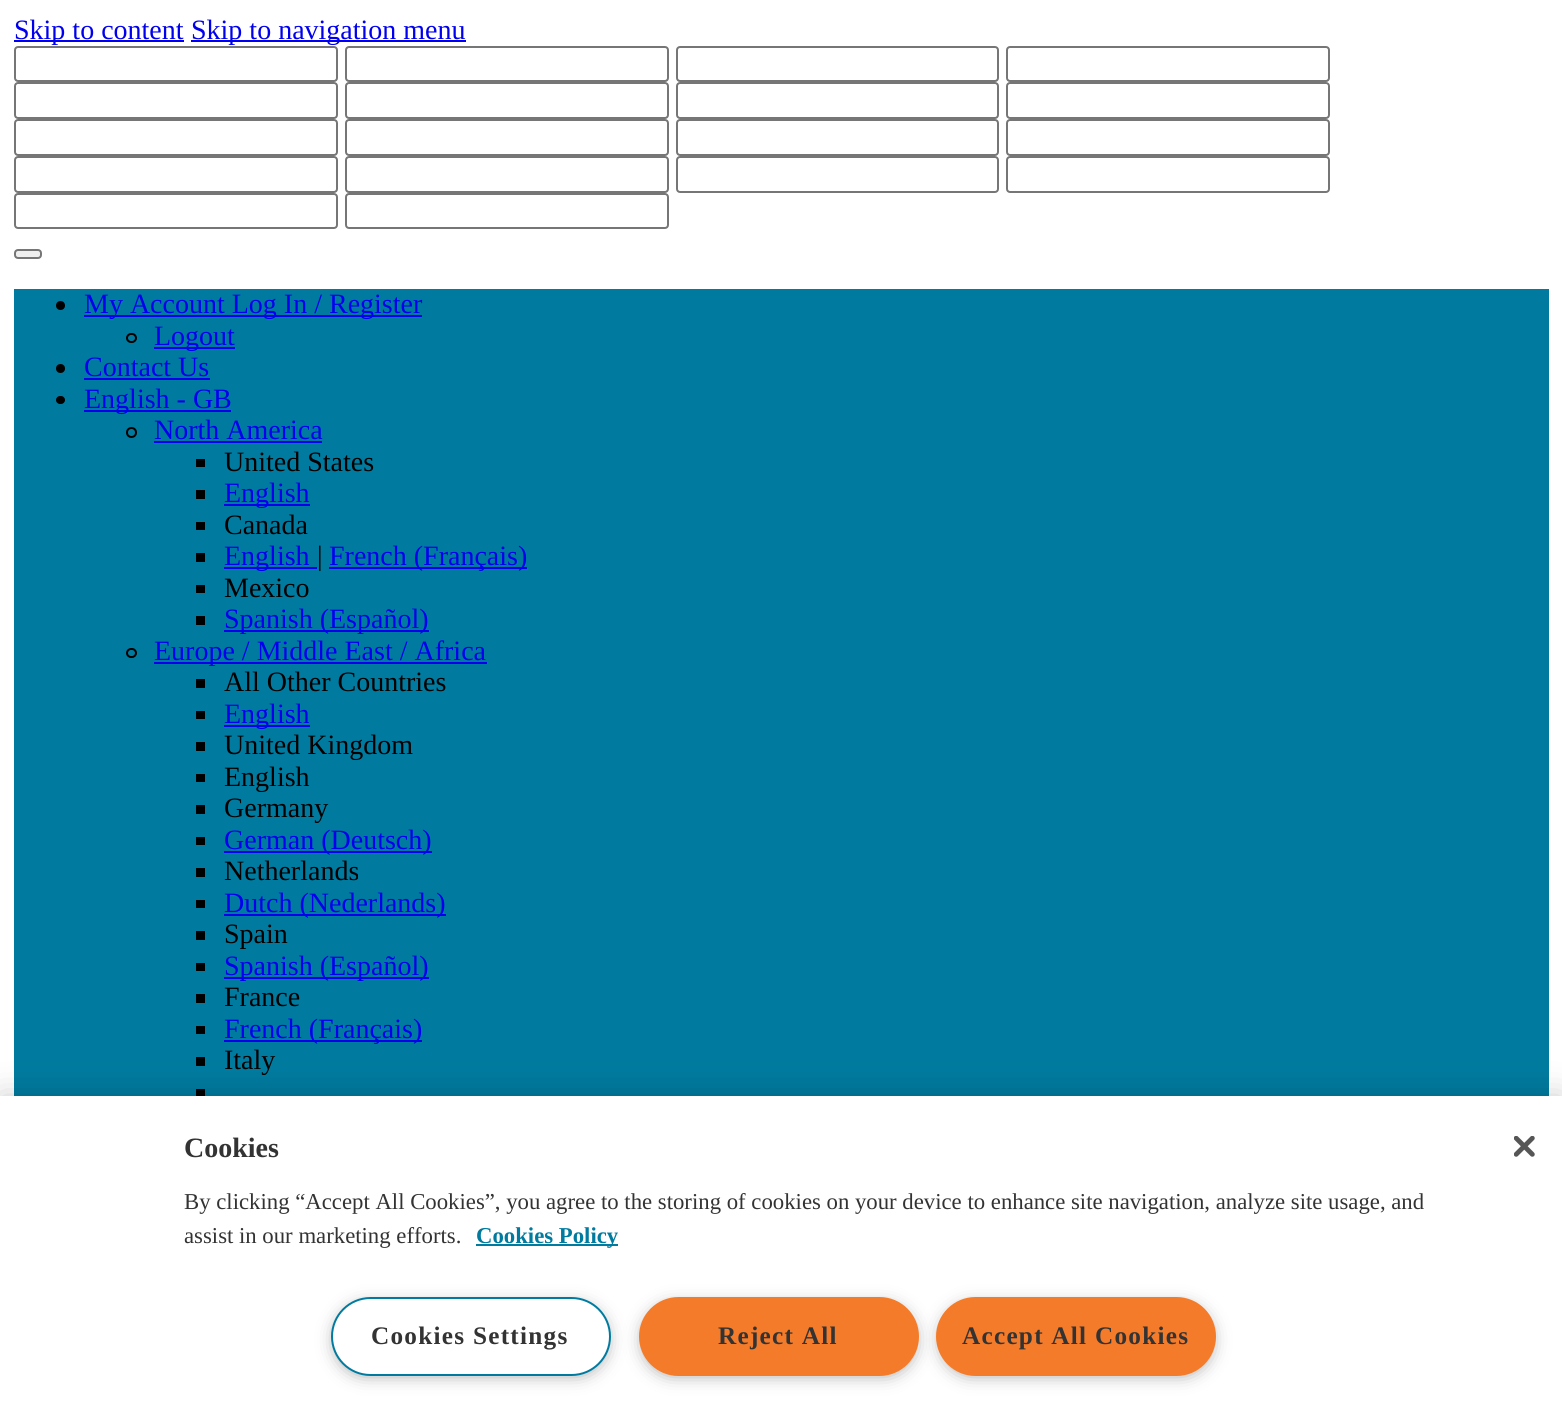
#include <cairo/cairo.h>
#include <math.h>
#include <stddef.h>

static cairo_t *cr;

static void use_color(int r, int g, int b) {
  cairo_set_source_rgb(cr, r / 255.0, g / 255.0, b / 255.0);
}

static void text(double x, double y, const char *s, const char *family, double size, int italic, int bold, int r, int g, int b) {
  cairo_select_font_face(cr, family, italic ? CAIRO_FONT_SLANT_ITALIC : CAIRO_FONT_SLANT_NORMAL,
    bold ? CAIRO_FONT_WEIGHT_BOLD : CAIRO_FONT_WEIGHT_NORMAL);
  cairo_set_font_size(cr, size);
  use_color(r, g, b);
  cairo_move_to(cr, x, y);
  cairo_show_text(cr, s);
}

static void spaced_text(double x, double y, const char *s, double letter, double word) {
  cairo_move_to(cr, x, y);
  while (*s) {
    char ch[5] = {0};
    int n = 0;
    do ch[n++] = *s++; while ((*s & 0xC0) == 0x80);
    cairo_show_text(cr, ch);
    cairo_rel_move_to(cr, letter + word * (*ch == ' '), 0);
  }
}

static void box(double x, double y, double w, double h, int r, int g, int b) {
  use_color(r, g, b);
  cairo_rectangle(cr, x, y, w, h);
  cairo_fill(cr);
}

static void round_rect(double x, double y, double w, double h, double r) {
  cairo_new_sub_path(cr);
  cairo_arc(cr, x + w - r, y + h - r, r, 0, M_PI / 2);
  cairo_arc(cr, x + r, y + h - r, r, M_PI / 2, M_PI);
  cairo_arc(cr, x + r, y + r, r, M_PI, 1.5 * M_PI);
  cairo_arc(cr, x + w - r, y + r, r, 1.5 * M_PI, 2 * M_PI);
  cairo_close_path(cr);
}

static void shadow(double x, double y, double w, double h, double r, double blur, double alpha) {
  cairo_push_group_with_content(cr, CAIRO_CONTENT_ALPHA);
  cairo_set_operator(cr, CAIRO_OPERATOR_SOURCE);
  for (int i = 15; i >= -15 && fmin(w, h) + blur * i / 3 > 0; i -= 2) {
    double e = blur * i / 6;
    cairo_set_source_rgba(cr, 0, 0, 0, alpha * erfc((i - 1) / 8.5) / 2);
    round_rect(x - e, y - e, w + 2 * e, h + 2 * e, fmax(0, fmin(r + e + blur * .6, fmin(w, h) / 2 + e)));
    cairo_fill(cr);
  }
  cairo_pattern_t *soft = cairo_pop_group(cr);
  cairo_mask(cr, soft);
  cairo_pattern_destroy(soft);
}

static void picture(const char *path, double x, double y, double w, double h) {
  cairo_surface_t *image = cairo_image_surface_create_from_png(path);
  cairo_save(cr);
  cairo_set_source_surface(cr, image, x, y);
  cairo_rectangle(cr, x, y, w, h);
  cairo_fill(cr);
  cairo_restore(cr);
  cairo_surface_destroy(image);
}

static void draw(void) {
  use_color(255, 255, 255);
  cairo_paint(cr);
  box(14, 40, 170, 2, 0, 0, 238);
  box(191, 40, 275, 2, 0, 0, 238);
  round_rect(15, 47, 322, 34, 3);
  use_color(118, 118, 118);
  cairo_stroke(cr);
  round_rect(346, 47, 322, 34, 3);
  cairo_stroke(cr);
  round_rect(677, 47, 321, 34, 3);
  cairo_stroke(cr);
  round_rect(1007, 47, 322, 34, 3);
  cairo_stroke(cr);
  round_rect(15, 83, 322, 35, 3);
  cairo_stroke(cr);
  round_rect(346, 83, 322, 35, 3);
  cairo_stroke(cr);
  round_rect(677, 83, 321, 35, 3);
  cairo_stroke(cr);
  round_rect(1007, 83, 322, 35, 3);
  cairo_stroke(cr);
  round_rect(15, 120, 322, 35, 3);
  cairo_stroke(cr);
  round_rect(346, 120, 322, 35, 3);
  cairo_stroke(cr);
  round_rect(677, 120, 321, 35, 3);
  cairo_stroke(cr);
  round_rect(1007, 120, 322, 35, 3);
  cairo_stroke(cr);
  round_rect(15, 157, 322, 35, 3);
  cairo_stroke(cr);
  round_rect(346, 157, 322, 35, 3);
  cairo_stroke(cr);
  round_rect(677, 157, 321, 35, 3);
  cairo_stroke(cr);
  round_rect(1007, 157, 322, 35, 3);
  cairo_stroke(cr);
  round_rect(15, 194, 322, 34, 3);
  cairo_stroke(cr);
  round_rect(346, 194, 322, 34, 3);
  cairo_stroke(cr);
  use_color(239, 239, 239);
  round_rect(15, 250, 26, 8, 3);
  cairo_fill_preserve(cr);
  use_color(118, 118, 118);
  cairo_stroke(cr);
  box(14, 289, 1535, 807, 0, 123, 159);
  use_color(0, 0, 0);
  cairo_arc(cr, 60.5, 305.5, 4.5, 0, 2 * M_PI);
  cairo_fill(cr);
  box(84, 315, 338, 2, 0, 0, 238);
  round_rect(127, 334, 9, 8, 4);
  use_color(0, 0, 0);
  cairo_stroke(cr);
  box(154, 347, 81, 2, 0, 0, 238);
  use_color(0, 0, 0);
  cairo_arc(cr, 60.5, 368.5, 4.5, 0, 2 * M_PI);
  cairo_fill(cr);
  box(84, 378, 126, 2, 0, 0, 238);
  use_color(0, 0, 0);
  round_rect(56, 396, 9, 8, 4);
  cairo_fill(cr);
  box(84, 410, 147, 2, 0, 0, 238);
  cairo_arc(cr, 131.5, 432.5, 4.5, 0, 2 * M_PI);
  use_color(0, 0, 0);
  cairo_stroke(cr);
  box(154, 441, 168, 2, 0, 0, 238);
  box(196, 459, 9, 8, 0, 0, 0);
  box(196, 490, 9, 9, 0, 0, 0);
  box(224, 504, 86, 2, 0, 0, 238);
  box(196, 522, 9, 8, 0, 0, 0);
  box(196, 553, 9, 9, 0, 0, 0);
  box(224, 567, 93, 2, 0, 0, 238);
  box(329, 567, 198, 2, 0, 0, 238);
  box(196, 585, 9, 8, 0, 0, 0);
  box(196, 616, 9, 9, 0, 0, 0);
  box(224, 630, 205, 2, 0, 0, 238);
  round_rect(127, 649, 9, 8, 4);
  use_color(0, 0, 0);
  cairo_stroke(cr);
  box(154, 662, 333, 2, 0, 0, 238);
  box(196, 679, 9, 9, 0, 0, 0);
  box(196, 711, 9, 8, 0, 0, 0);
  box(224, 725, 86, 2, 0, 0, 238);
  box(196, 742, 9, 9, 0, 0, 0);
  box(196, 774, 9, 8, 0, 0, 0);
  box(196, 805, 9, 9, 0, 0, 0);
  box(196, 837, 9, 8, 0, 0, 0);
  box(224, 851, 208, 2, 0, 0, 238);
  box(196, 868, 9, 9, 0, 0, 0);
  box(196, 900, 9, 8, 0, 0, 0);
  box(224, 914, 222, 2, 0, 0, 238);
  box(196, 931, 9, 9, 0, 0, 0);
  box(196, 963, 9, 8, 0, 0, 0);
  box(224, 977, 205, 2, 0, 0, 238);
  box(196, 994, 9, 9, 0, 0, 0);
  box(196, 1026, 9, 8, 0, 0, 0);
  box(224, 1040, 198, 2, 0, 0, 238);
  box(196, 1057, 9, 9, 0, 0, 0);
  box(196, 1089, 9, 7, 0, 0, 0);
  use_color(0, 0, 0);
  shadow(0, 1096, 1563, 325, 0, 16, 0.2);
  box(0, 1096, 1562, 325, 255, 255, 255);
  box(476, 1244, 142, 2, 0, 123, 159);
  use_color(153, 153, 153);
  shadow(336, 1306, 270, 68, 34, 9, 1);
  use_color(255, 255, 255);
  round_rect(332, 1298, 278, 77, 38.5);
  cairo_fill_preserve(cr);
  use_color(0, 123, 159);
  cairo_stroke(cr);
  use_color(153, 153, 153);
  shadow(942, 1306, 269, 68, 34, 9, 1);
  use_color(244, 123, 41);
  round_rect(937, 1298, 278, 77, 38.5);
  cairo_fill_preserve(cr);
  cairo_stroke(cr);
  use_color(153, 153, 153);
  shadow(644, 1306, 270, 68, 34, 9, 1);
  use_color(244, 123, 41);
  round_rect(640, 1298, 278, 77, 38.5);
  cairo_fill_preserve(cr);
  cairo_stroke(cr);
  picture("img_01.png", 1514, 1136, 21, 21);
  text(14, 39, "Skip to content", "Liberation Serif", 28, 0, 0, 0, 0, 238);
  text(191, 39, "Skip to navigation menu", "Liberation Serif", 28, 0, 0, 0, 0, 238);
  text(84, 313, "My Account Log In / Register", "Liberation Serif", 28, 0, 0, 0, 0, 238);
  text(154, 345, "Logout", "Liberation Serif", 28, 0, 0, 0, 0, 238);
  text(84, 376, "Contact Us", "Liberation Serif", 28, 0, 0, 0, 0, 238);
  text(84, 408, "English - GB", "Liberation Serif", 28, 0, 0, 0, 0, 238);
  text(154, 439, "North America", "Liberation Serif", 28, 0, 0, 0, 0, 238);
  text(224, 471, "United States", "Liberation Serif", 28, 0, 0, 0, 0, 0);
  text(224, 502, "English", "Liberation Serif", 28, 0, 0, 0, 0, 238);
  text(224, 534, "Canada", "Liberation Serif", 28, 0, 0, 0, 0, 0);
  text(224, 565, "English", "Liberation Serif", 28, 0, 0, 0, 0, 238);
  text(317, 565, "|", "Liberation Serif", 28, 0, 0, 0, 0, 0);
  text(329, 565, "French (Français)", "Liberation Serif", 28, 0, 0, 0, 0, 238);
  text(224, 597, "Mexico", "Liberation Serif", 28, 0, 0, 0, 0, 0);
  text(224, 628, "Spanish (Español)", "Liberation Serif", 28, 0, 0, 0, 0, 238);
  text(154, 660, "Europe / Middle East / Africa", "Liberation Serif", 28, 0, 0, 0, 0, 238);
  text(224, 691, "All Other Countries", "Liberation Serif", 28, 0, 0, 0, 0, 0);
  text(224, 723, "English", "Liberation Serif", 28, 0, 0, 0, 0, 238);
  text(224, 754, "United Kingdom", "Liberation Serif", 28, 0, 0, 0, 0, 0);
  text(224, 786, "English", "Liberation Serif", 28, 0, 0, 0, 0, 0);
  text(224, 817, "Germany", "Liberation Serif", 28, 0, 0, 0, 0, 0);
  text(224, 849, "German (Deutsch)", "Liberation Serif", 28, 0, 0, 0, 0, 238);
  text(224, 880, "Netherlands", "Liberation Serif", 28, 0, 0, 0, 0, 0);
  text(224, 912, "Dutch (Nederlands)", "Liberation Serif", 28, 0, 0, 0, 0, 238);
  text(224, 943, "Spain", "Liberation Serif", 28, 0, 0, 0, 0, 0);
  text(224, 975, "Spanish (Español)", "Liberation Serif", 28, 0, 0, 0, 0, 238);
  text(224, 1006, "France", "Liberation Serif", 28, 0, 0, 0, 0, 0);
  text(224, 1038, "French (Français)", "Liberation Serif", 28, 0, 0, 0, 0, 238);
  text(224, 1069, "Italy", "Liberation Serif", 28, 0, 0, 0, 0, 0);
  text(184, 1157, "Cookies", "Liberation Serif", 28, 0, 1, 51, 51, 51);
  text(184, 1209, "By clicking “Accept All Cookies”, you agree to the storing of cookies on your device to enhance site navigation, analyze site usage, and", "Liberation Serif", 22.75, 0, 0, 51, 51, 51);
  text(184, 1243, "assist in our marketing efforts.", "Liberation Serif", 22.75, 0, 0, 51, 51, 51);
  text(476, 1243, "Cookies Policy", "Liberation Serif", 22.75, 0, 1, 0, 123, 159);
  cairo_set_font_size(cr, 25.25);
  use_color(51, 51, 51);
  spaced_text(371, 1344, "Cookies Settings", 1.25, 0);
  spaced_text(718, 1344, "Reject All", 1.25, 0);
  spaced_text(962, 1344, "Accept All Cookies", 1.25, 0);
}

int main(void) {
  cairo_surface_t *surface = cairo_image_surface_create(CAIRO_FORMAT_RGB24, 1562, 1421);
  cr = cairo_create(surface);
  cairo_font_options_t *options = cairo_font_options_create();
  cairo_font_options_set_hint_metrics(options, CAIRO_HINT_METRICS_OFF);
  cairo_font_options_set_hint_style(options, CAIRO_HINT_STYLE_NONE);
  cairo_set_font_options(cr, options);
  cairo_set_miter_limit(cr, 4);
  draw();
  cairo_surface_write_to_png(surface, "out.png");
  cairo_font_options_destroy(options);
  cairo_destroy(cr);
  cairo_surface_destroy(surface);
  return 0;
}
